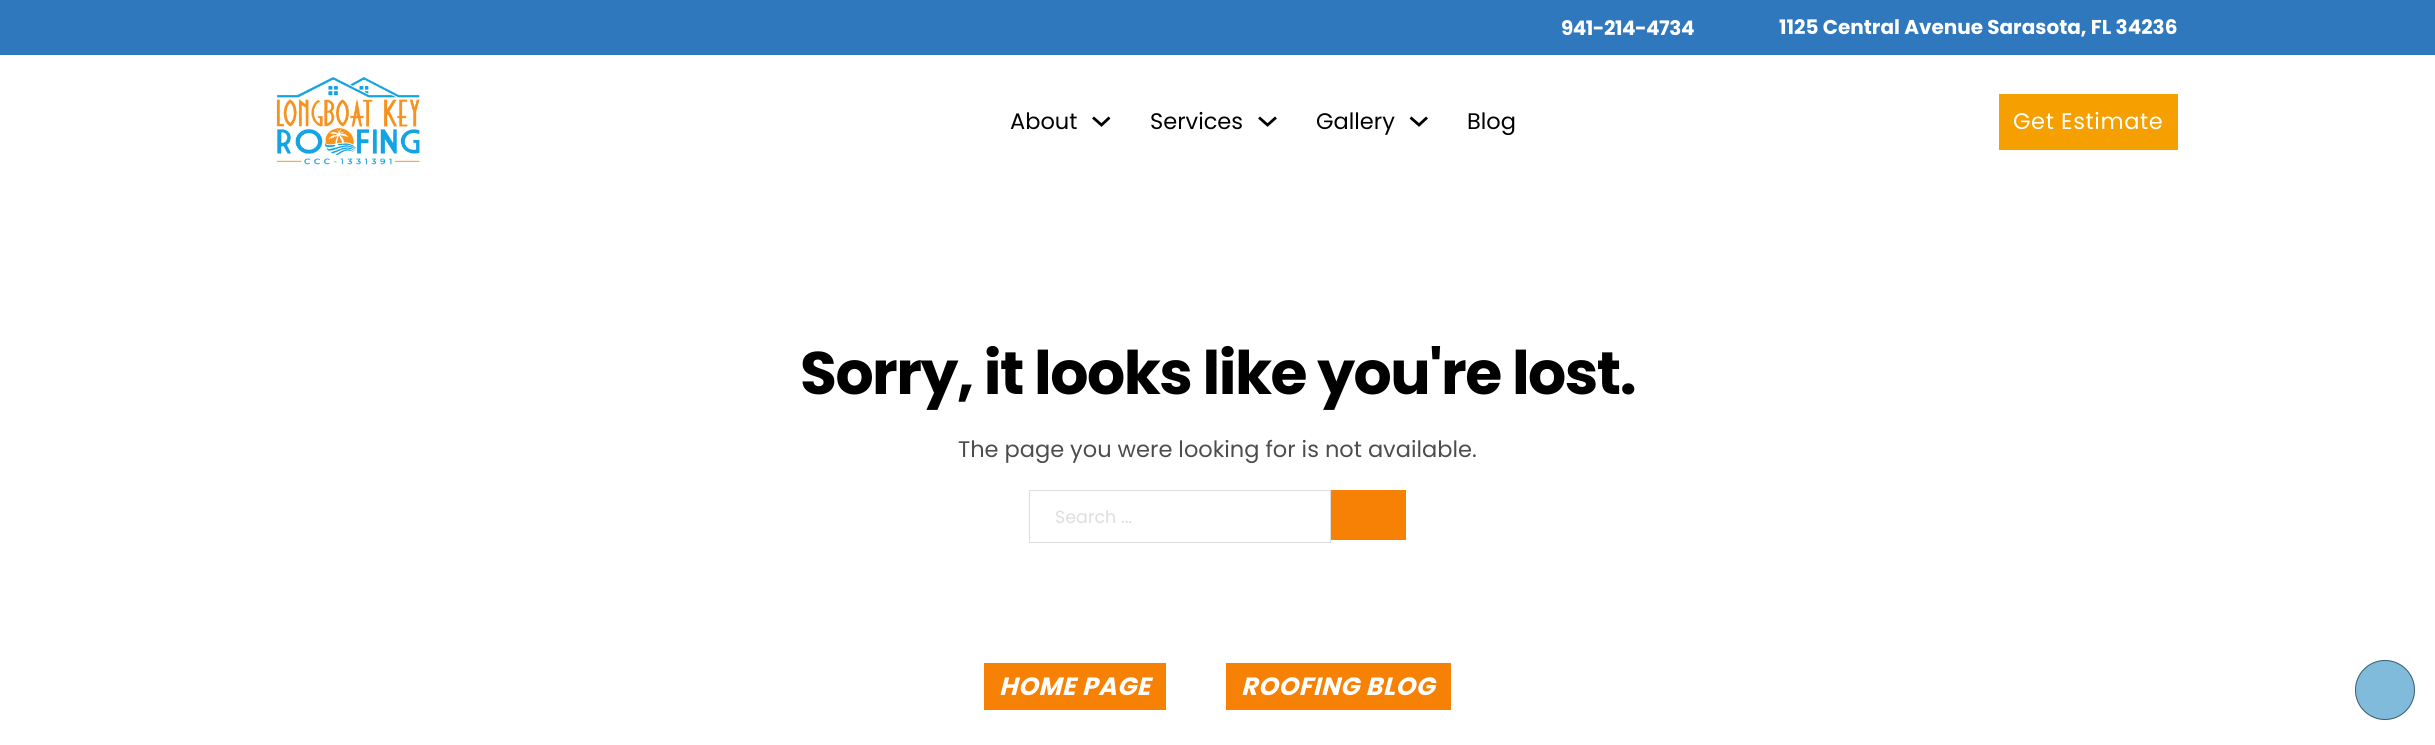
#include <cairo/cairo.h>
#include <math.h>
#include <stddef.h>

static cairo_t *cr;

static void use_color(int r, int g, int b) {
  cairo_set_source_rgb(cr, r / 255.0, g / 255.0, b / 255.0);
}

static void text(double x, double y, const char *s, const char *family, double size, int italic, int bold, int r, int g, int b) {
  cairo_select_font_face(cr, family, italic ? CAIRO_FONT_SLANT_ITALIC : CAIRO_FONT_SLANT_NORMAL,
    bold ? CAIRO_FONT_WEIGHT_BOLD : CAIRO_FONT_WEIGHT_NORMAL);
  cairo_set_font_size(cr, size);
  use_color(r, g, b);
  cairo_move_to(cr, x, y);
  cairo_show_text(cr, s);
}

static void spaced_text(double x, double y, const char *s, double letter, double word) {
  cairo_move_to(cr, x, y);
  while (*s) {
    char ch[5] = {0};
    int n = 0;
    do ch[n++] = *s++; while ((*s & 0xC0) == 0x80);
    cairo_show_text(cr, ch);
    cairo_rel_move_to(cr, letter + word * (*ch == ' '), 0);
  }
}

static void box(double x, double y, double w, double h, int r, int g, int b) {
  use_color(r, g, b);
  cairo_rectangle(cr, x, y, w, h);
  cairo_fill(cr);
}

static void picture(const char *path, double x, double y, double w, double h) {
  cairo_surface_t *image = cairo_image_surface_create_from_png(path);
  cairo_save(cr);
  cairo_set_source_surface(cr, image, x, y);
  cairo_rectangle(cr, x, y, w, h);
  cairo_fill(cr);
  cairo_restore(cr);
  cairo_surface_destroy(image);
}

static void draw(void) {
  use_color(255, 255, 255);
  cairo_paint(cr);
  box(0, 0, 2435, 55, 48, 120, 190);
  picture("img_01.png", 276, 77, 144, 88);
  cairo_new_path(cr);
  cairo_move_to(cr, 1093, 117.5);
  cairo_line_to(cr, 1101.5, 125);
  cairo_line_to(cr, 1109.5, 117.5);
  use_color(0, 0, 0);
  cairo_set_line_width(cr, 2.8);
  cairo_stroke(cr);
  cairo_new_path(cr);
  cairo_move_to(cr, 1259, 117.5);
  cairo_line_to(cr, 1267.5, 125);
  cairo_line_to(cr, 1276, 117.5);
  cairo_stroke(cr);
  cairo_new_path(cr);
  cairo_move_to(cr, 1410.5, 117.5);
  cairo_line_to(cr, 1419, 125);
  cairo_line_to(cr, 1427, 117.5);
  cairo_stroke(cr);
  box(1999, 94, 179, 56, 245, 159, 0);
  cairo_rectangle(cr, 1029.5, 490.5, 301, 52);
  use_color(221, 222, 223);
  cairo_set_line_width(cr, 1);
  cairo_stroke(cr);
  box(1331, 490, 75, 50, 247, 129, 4);
  box(984, 663, 182, 47, 247, 129, 4);
  box(1226, 663, 225, 47, 247, 129, 4);
  use_color(128, 187, 220);
  cairo_arc(cr, 2385, 690, 30, 0, 2 * M_PI);
  cairo_fill(cr);
  cairo_arc(cr, 2385, 690, 29.5, 0, 2 * M_PI);
  cairo_set_source_rgba(cr, 0, 0, 0, 0.5);
  cairo_stroke(cr);
  cairo_select_font_face(cr, "Poppins", CAIRO_FONT_SLANT_NORMAL, CAIRO_FONT_WEIGHT_BOLD);
  cairo_set_font_size(cr, 20);
  use_color(255, 255, 255);
  spaced_text(1561, 35, "941-214-4734", -0.5, 0);
  text(1779, 34, "1125 Central Avenue Sarasota, FL 34236", "Poppins", 20, 0, 1, 255, 255, 255);
  text(1010, 129, "About", "Poppins", 22.5, 0, 0, 0, 0, 0);
  text(1150, 129, "Services", "Poppins", 22.5, 0, 0, 0, 0, 0);
  text(1316, 129, "Gallery", "Poppins", 22.5, 0, 0, 0, 0, 0);
  text(1467, 129, "Blog", "Poppins", 22.5, 0, 0, 0, 0, 0);
  use_color(255, 255, 255);
  spaced_text(2013, 129, "Get Estimate", 0.6, 0);
  cairo_select_font_face(cr, "Poppins", CAIRO_FONT_SLANT_NORMAL, CAIRO_FONT_WEIGHT_BOLD);
  cairo_set_font_size(cr, 60);
  use_color(0, 0, 0);
  spaced_text(800, 394, "Sorry, it looks like you're lost.", -1.5, 0);
  text(958, 457, "The page you were looking for is not available.", "Poppins", 22.5, 0, 0, 77, 77, 79);
  text(1055, 523, "Search ...", "Poppins", 17.5, 0, 0, 221, 222, 223);
  cairo_select_font_face(cr, "Poppins", CAIRO_FONT_SLANT_ITALIC, CAIRO_FONT_WEIGHT_BOLD);
  cairo_set_font_size(cr, 25);
  use_color(255, 255, 255);
  spaced_text(999, 695, "HOME PAGE", 0.6, 0);
  spaced_text(1241, 695, "ROOFING BLOG", 0.6, 0);
}

int main(void) {
  cairo_surface_t *surface = cairo_image_surface_create(CAIRO_FORMAT_RGB24, 2435, 745);
  cr = cairo_create(surface);
  cairo_font_options_t *options = cairo_font_options_create();
  cairo_font_options_set_hint_metrics(options, CAIRO_HINT_METRICS_OFF);
  cairo_font_options_set_hint_style(options, CAIRO_HINT_STYLE_NONE);
  cairo_set_font_options(cr, options);
  cairo_set_miter_limit(cr, 4);
  draw();
  cairo_surface_write_to_png(surface, "out.png");
  cairo_font_options_destroy(options);
  cairo_destroy(cr);
  cairo_surface_destroy(surface);
  return 0;
}
